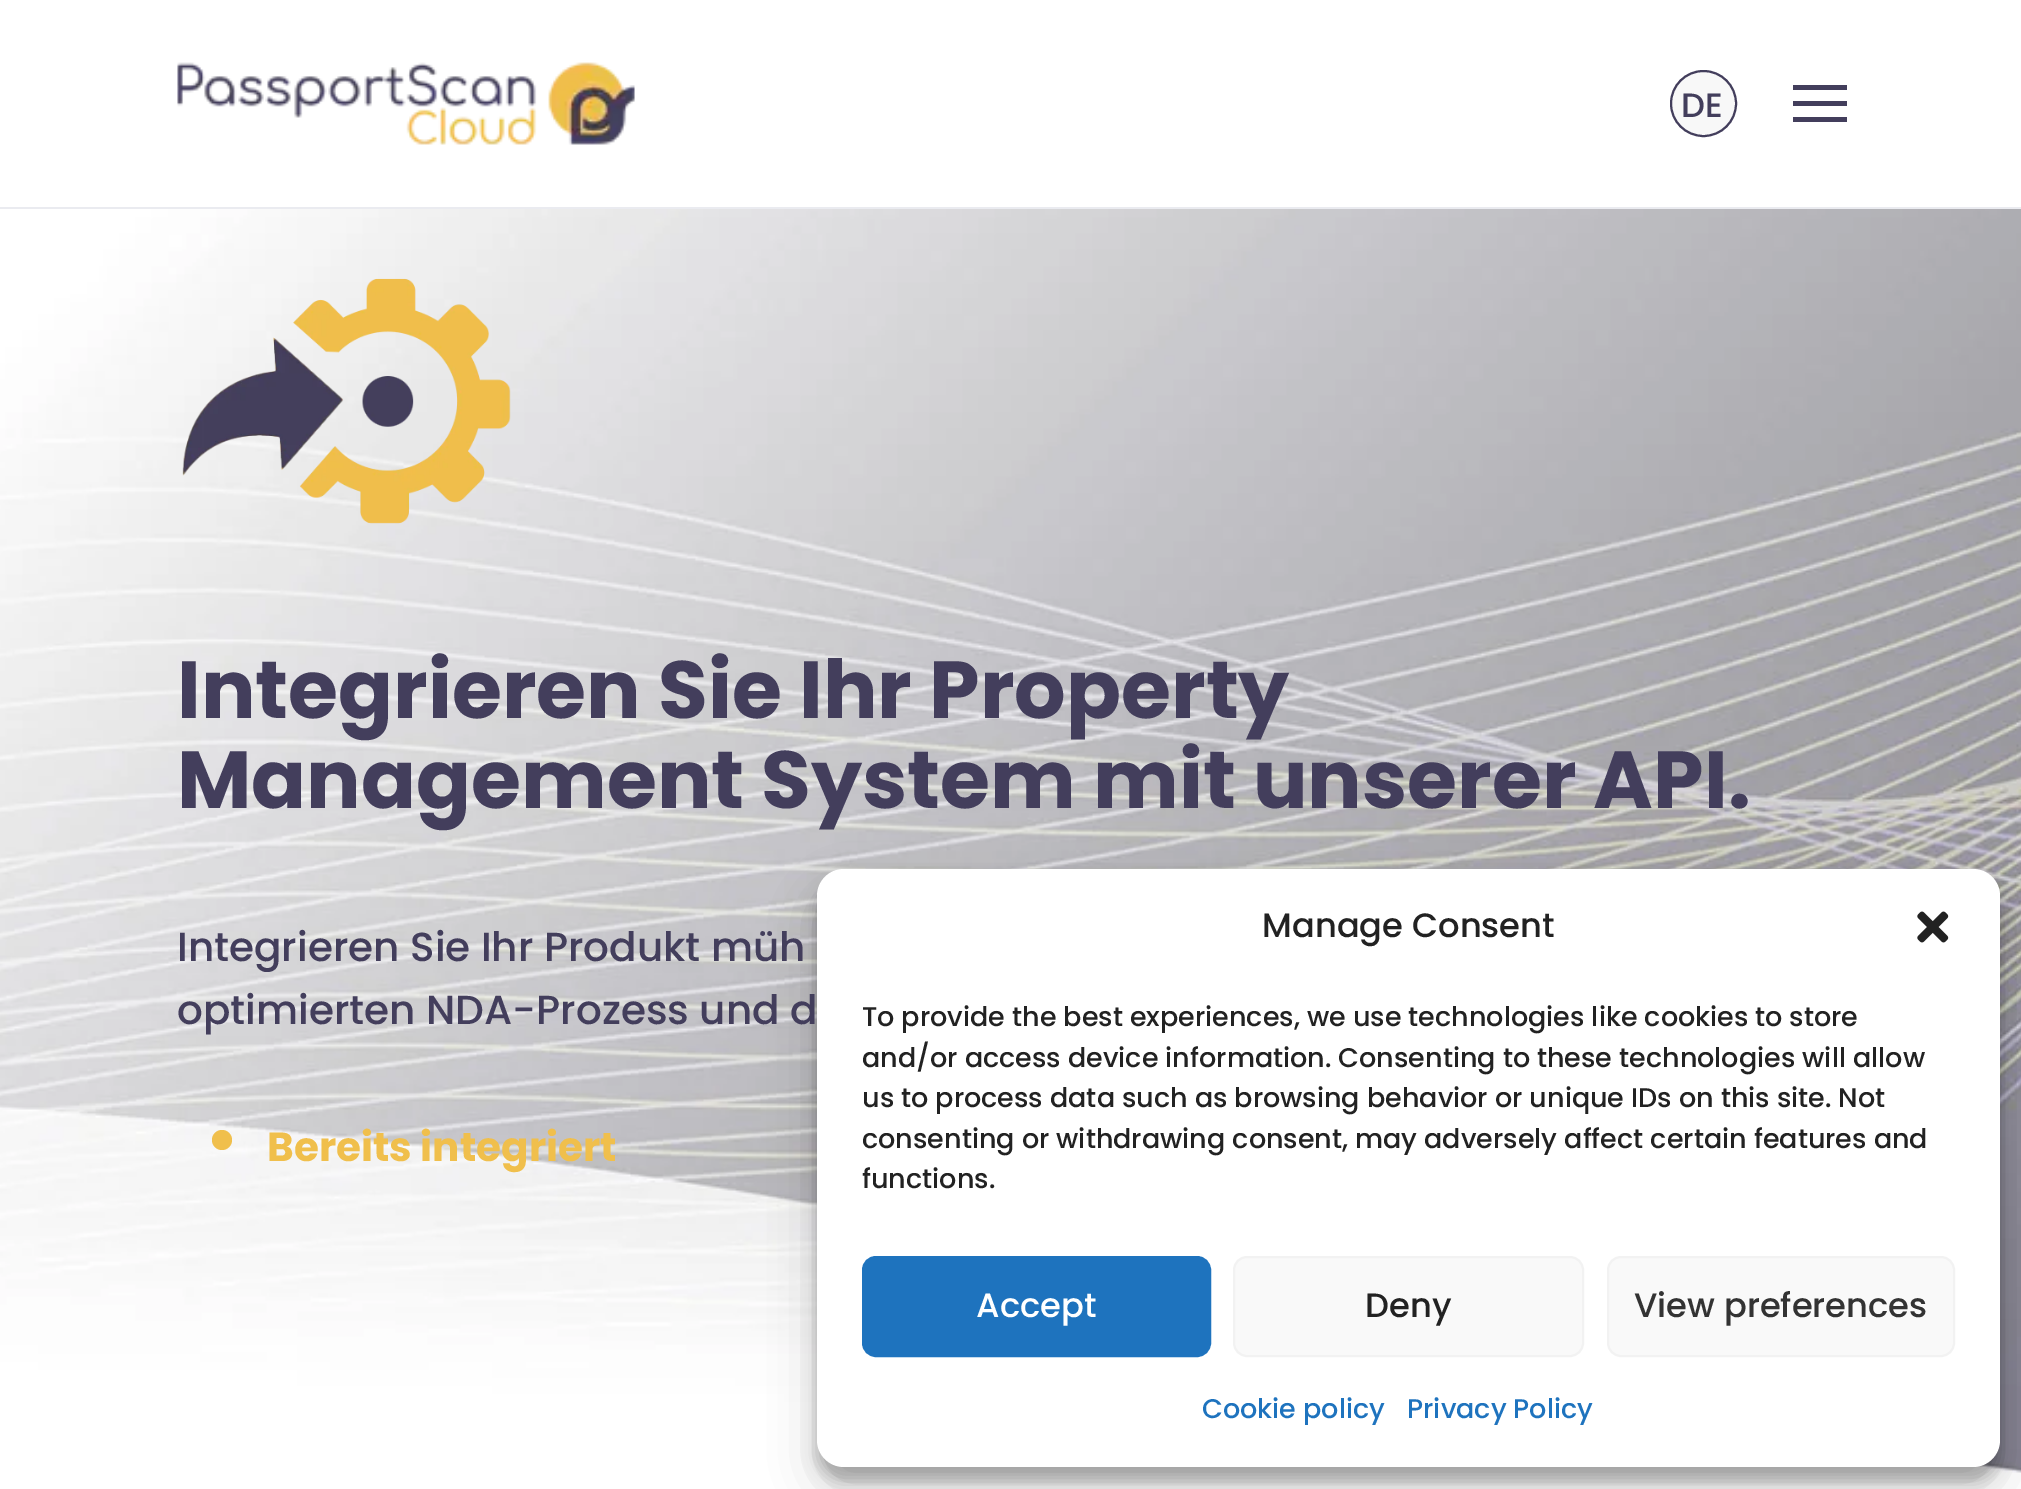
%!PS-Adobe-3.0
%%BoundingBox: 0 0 2021 1489
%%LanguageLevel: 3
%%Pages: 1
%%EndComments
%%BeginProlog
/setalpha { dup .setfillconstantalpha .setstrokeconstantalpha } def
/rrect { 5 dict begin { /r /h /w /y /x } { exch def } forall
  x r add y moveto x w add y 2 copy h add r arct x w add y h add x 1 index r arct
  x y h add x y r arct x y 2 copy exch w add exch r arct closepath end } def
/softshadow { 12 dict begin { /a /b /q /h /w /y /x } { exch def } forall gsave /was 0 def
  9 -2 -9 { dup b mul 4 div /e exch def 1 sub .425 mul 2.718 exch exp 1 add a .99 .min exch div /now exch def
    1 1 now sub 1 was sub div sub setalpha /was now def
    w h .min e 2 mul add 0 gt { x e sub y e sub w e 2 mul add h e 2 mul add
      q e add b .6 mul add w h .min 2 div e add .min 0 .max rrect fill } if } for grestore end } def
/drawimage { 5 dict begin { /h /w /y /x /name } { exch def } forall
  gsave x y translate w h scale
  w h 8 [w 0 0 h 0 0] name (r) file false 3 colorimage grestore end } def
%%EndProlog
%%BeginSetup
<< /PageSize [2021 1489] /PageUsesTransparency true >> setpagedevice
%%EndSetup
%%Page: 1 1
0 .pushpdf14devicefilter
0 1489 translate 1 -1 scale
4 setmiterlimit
1 setgray
0 0 2021 1489 rectfill
0.918 0.922 0.941 setrgbcolor
0 207 2021 2 rectfill
(images/1.raw) 177 62 458 83 drawimage
0.973 setgray
newpath 1703.5 103.5 32.5 0 360 arc closepath gsave fill grestore
0.263 0.243 0.361 setrgbcolor
2 setlinewidth
stroke
newpath 1793 85 moveto 1847 85 lineto 1847 90 lineto 1793 90 lineto closepath 1793 101 moveto 1847 101 lineto 1847 106 lineto 1793 106 lineto closepath 1793 117 moveto 1847 117 lineto 1847 122 lineto 1793 122 lineto closepath eofill
(images/2.raw) 0 209 2021 1264 drawimage
(images/3.raw) 182 278 329 246 drawimage
0.941 0.749 0.298 setrgbcolor
newpath 222 1140 10 0 360 arc closepath fill
0 setgray
817 882 1183 599 27 7 0.23 softshadow
817 891 1183 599 27 22.5 0.19 softshadow
1 setgray
817 869 1183 598 27 rrect fill
(images/4.raw) 1917 911 32 32 drawimage
0.118 0.451 0.745 setrgbcolor
863 1257 347 99 13 rrect gsave fill grestore
stroke
0.976 setgray
1234 1257 349 99 13 rrect gsave fill grestore
0.949 setgray
stroke
0.976 setgray
1608 1257 346 99 13 rrect gsave fill grestore
0.949 setgray
stroke
/Poppins-Medium [33.75 0 0 -33.75 0 0] selectfont
0.263 0.243 0.361 setrgbcolor
1681 117 moveto (DE) show
/Poppins-Bold [81 0 0 -81 0 0] selectfont
177 718 moveto (Integrieren Sie Ihr Property) show
177 808 moveto (Management System mit unserer API.) show
/Poppins-Medium [40.5 0 0 -40.5 0 0] selectfont
177 961 moveto (Integrieren Sie Ihr Produkt müh) show
177 1024 moveto (optimierten NDA-Prozess und d) show
/Poppins-Bold [40.5 0 0 -40.5 0 0] selectfont
0.941 0.749 0.298 setrgbcolor
267 1161 moveto (Bereits integriert) show
/Poppins-Medium [33.75 0 0 -33.75 0 0] selectfont
0.133 setgray
1262 937 moveto (Manage Consent) show
/Poppins-Medium [27 0 0 -27 0 0] selectfont
862 1026 moveto (To provide the best experiences, we use technologies like cookies to store) show
862 1067 moveto (and/or access device information. Consenting to these technologies will allow) show
862 1107 moveto (us to process data such as browsing behavior or unique IDs on this site. Not) show
862 1148 moveto (consenting or withdrawing consent, may adversely affect certain features and) show
862 1188 moveto (functions.) show
/Poppins-Medium [33.75 0 0 -33.75 0 0] selectfont
1 setgray
976 1317 moveto (Accept) show
0.133 setgray
1365 1317 moveto (Deny) show
0.2 setgray
1634 1317 moveto (View preferences) show
/Poppins-Medium [27 0 0 -27 0 0] selectfont
0.118 0.451 0.745 setrgbcolor
1202 1418 moveto (Cookie policy) show
1407 1418 moveto (Privacy Policy) show
.poppdf14devicefilter showpage
%%EOF
